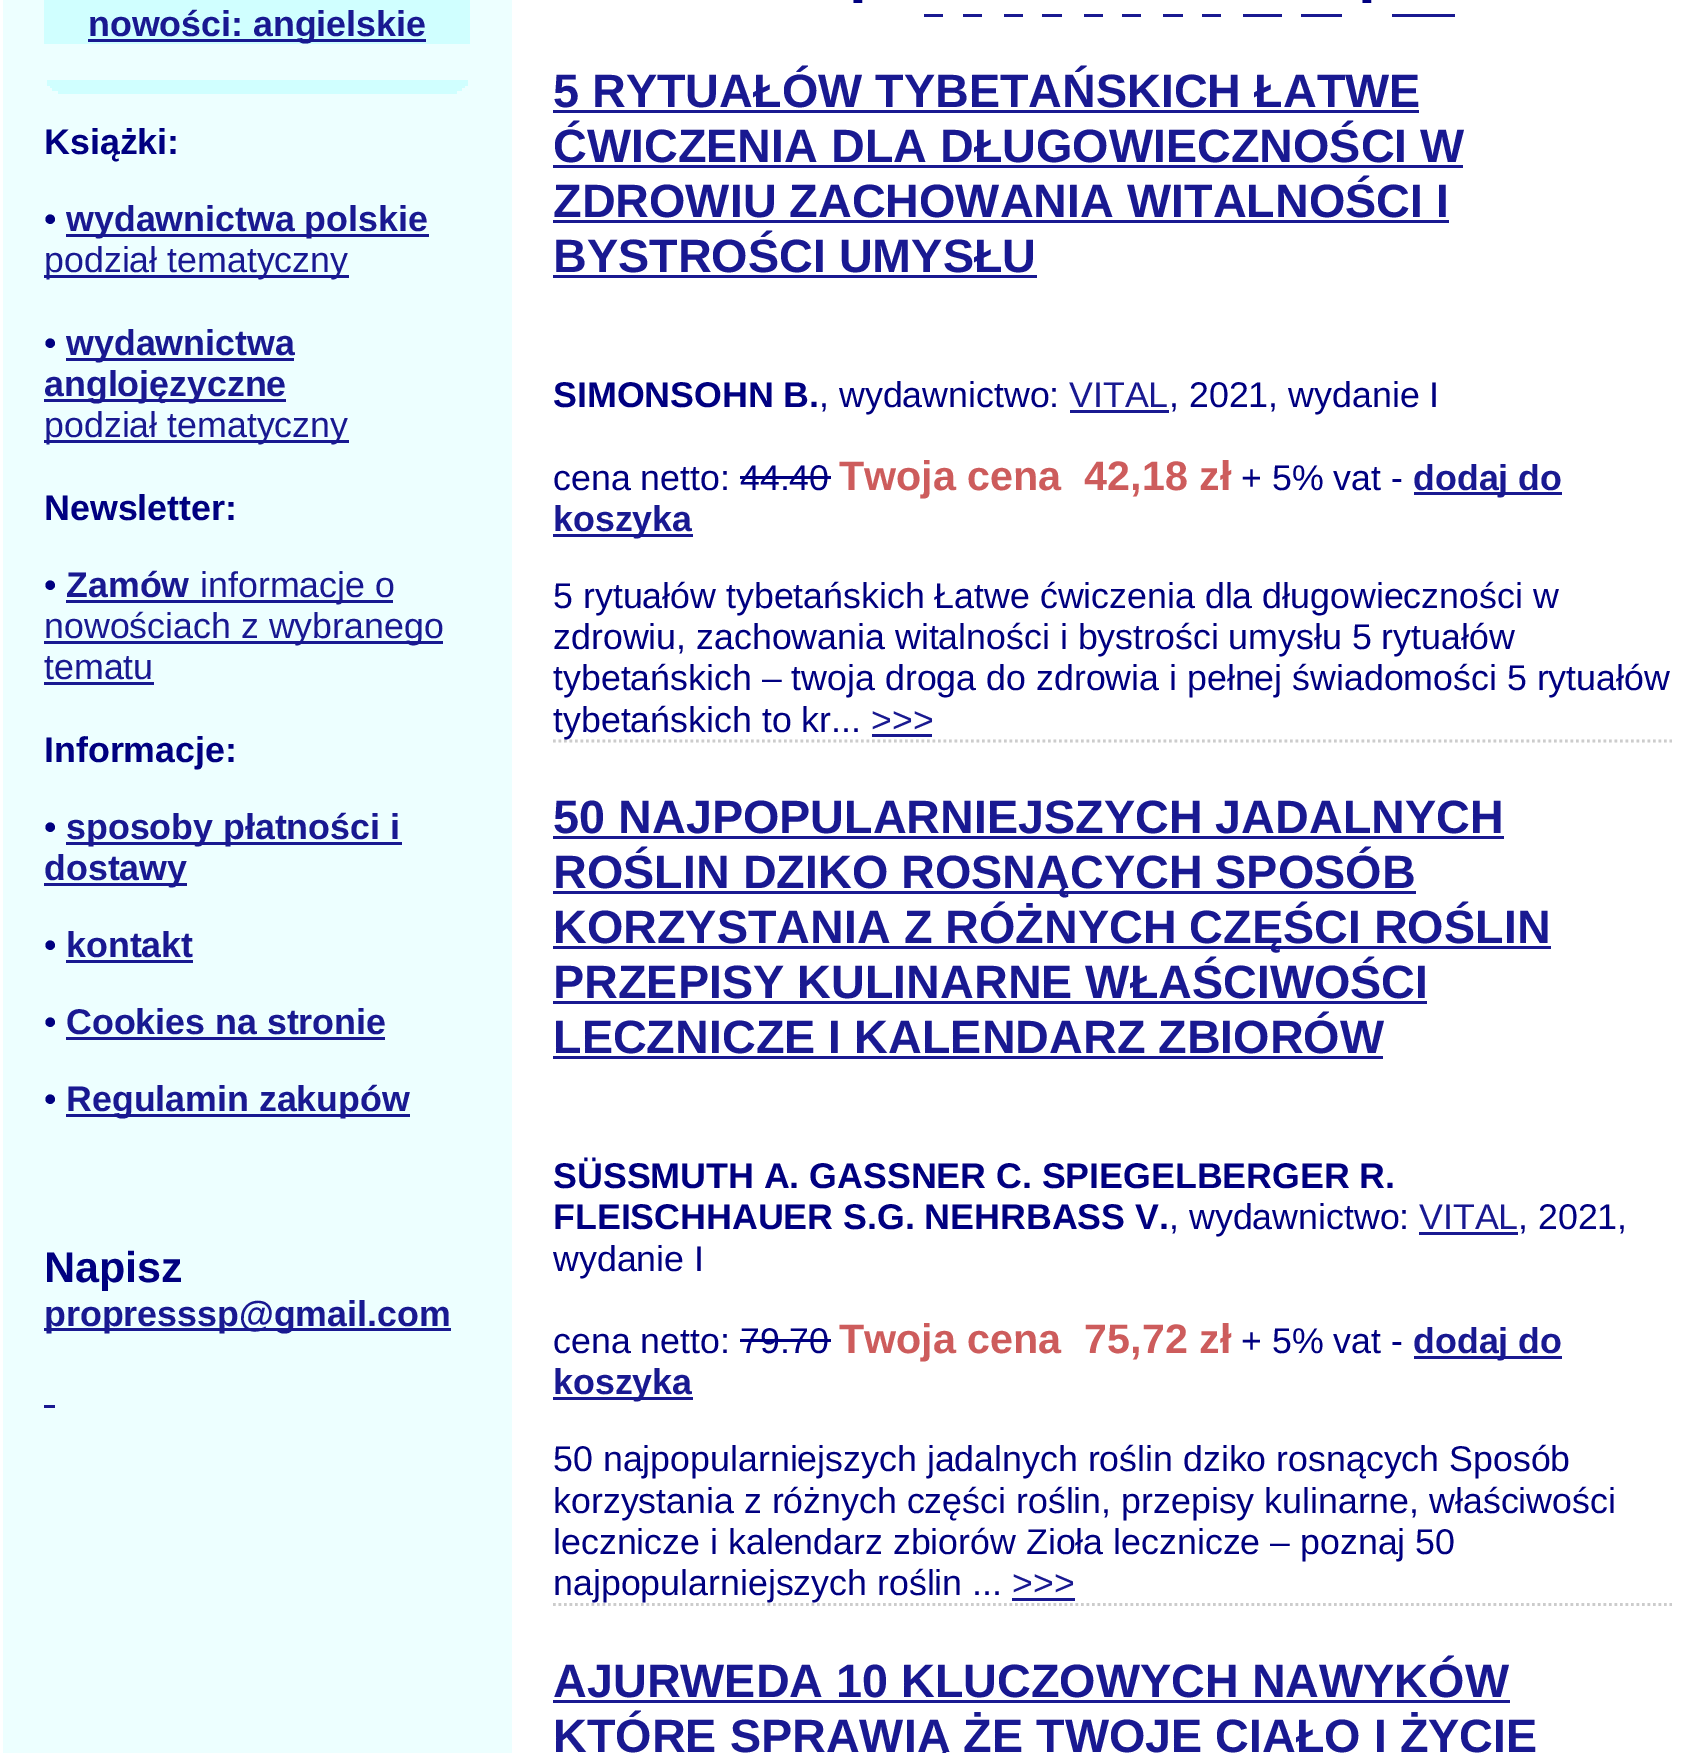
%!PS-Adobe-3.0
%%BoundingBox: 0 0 1686 1753
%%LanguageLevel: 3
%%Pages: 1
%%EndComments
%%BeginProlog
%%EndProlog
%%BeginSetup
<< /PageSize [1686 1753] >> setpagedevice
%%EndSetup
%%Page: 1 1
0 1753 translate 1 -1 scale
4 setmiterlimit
1 setgray
0 0 1686 1753 rectfill
0.929 1 1 setrgbcolor
3 0 509 1753 rectfill
0.816 1 1 setrgbcolor
44 0 426 44 rectfill
0.098 0.098 0.569 setrgbcolor
88 39 338 3 rectfill
0.816 1 1 setrgbcolor
47 80 421 6 rectfill
50 86 415 2 rectfill
52 88 410 3 rectfill
58 91 399 3 rectfill
0.098 0.098 0.569 setrgbcolor
66 234 363 3 rectfill
44 275 305 3 rectfill
66 358 228 3 rectfill
44 399 242 3 rectfill
44 440 305 3 rectfill
66 600 327 3 rectfill
44 641 399 3 rectfill
44 682 110 3 rectfill
66 842 336 3 rectfill
44 883 143 3 rectfill
66 960 127 3 rectfill
66 1037 319 3 rectfill
66 1114 344 3 rectfill
44 1328 407 3 rectfill
44 1405 11 3 rectfill
924 14 19 3 rectfill
963 14 19 3 rectfill
1004 14 19 3 rectfill
1042 14 20 3 rectfill
1084 14 19 3 rectfill
1122 14 19 3 rectfill
1163 14 20 3 rectfill
1202 14 19 3 rectfill
1243 14 39 3 rectfill
1301 14 41 3 rectfill
1392 14 63 3 rectfill
553 110 866 3 rectfill
553 165 910 3 rectfill
553 220 896 3 rectfill
553 275 484 3 rectfill
1070 410 99 3 rectfill
1414 492 148 3 rectfill
0 0 0.502 setrgbcolor
740 476 91 3 rectfill
0.098 0.098 0.569 setrgbcolor
553 534 140 3 rectfill
872 734 60 3 rectfill
0.8 setgray
2.8 setlinewidth
[2.75 2.75] 0 setdash
newpath 553 741 moveto 1672 741 lineto stroke
0.098 0.098 0.569 setrgbcolor
553 836 951 3 rectfill
553 891 863 3 rectfill
553 946 998 3 rectfill
553 1001 874 3 rectfill
553 1056 830 3 rectfill
1419 1232 99 3 rectfill
1414 1356 148 3 rectfill
0 0 0.502 setrgbcolor
740 1339 91 3 rectfill
0.098 0.098 0.569 setrgbcolor
553 1397 140 3 rectfill
1012 1598 63 3 rectfill
0.8 setgray
newpath 553 1604.5 moveto 1672 1604.5 lineto stroke
0.098 0.098 0.569 setrgbcolor
553 1700 957 3 rectfill
/LiberationSans-Bold [35.75 0 0 -35.75 0 0] selectfont
88 36 moveto (nowości: angielskie) show
0 0 0.502 setrgbcolor
44 154 moveto (Książki:) show
/LiberationSans-Regular [35.75 0 0 -35.75 0 0] selectfont
44 231 moveto (•) show
/LiberationSans-Bold [35.75 0 0 -35.75 0 0] selectfont
0.098 0.098 0.569 setrgbcolor
66 231 moveto (wydawnictwa polskie) show
/LiberationSans-Regular [35.75 0 0 -35.75 0 0] selectfont
44 272 moveto (podział tematyczny) show
0 0 0.502 setrgbcolor
44 355 moveto (•) show
/LiberationSans-Bold [35.75 0 0 -35.75 0 0] selectfont
0.098 0.098 0.569 setrgbcolor
66 355 moveto (wydawnictwa) show
44 396 moveto (anglojęzyczne) show
/LiberationSans-Regular [35.75 0 0 -35.75 0 0] selectfont
44 437 moveto (podział tematyczny) show
/LiberationSans-Bold [35.75 0 0 -35.75 0 0] selectfont
0 0 0.502 setrgbcolor
44 520 moveto (Newsletter:) show
/LiberationSans-Regular [35.75 0 0 -35.75 0 0] selectfont
44 597 moveto (•) show
/LiberationSans-Bold [35.75 0 0 -35.75 0 0] selectfont
0.098 0.098 0.569 setrgbcolor
66 597 moveto (Zamów) show
/LiberationSans-Regular [35.75 0 0 -35.75 0 0] selectfont
200 597 moveto (informacje o) show
44 638 moveto (nowościach z wybranego) show
44 679 moveto (tematu) show
/LiberationSans-Bold [35.75 0 0 -35.75 0 0] selectfont
0 0 0.502 setrgbcolor
44 762 moveto (Informacje:) show
/LiberationSans-Regular [35.75 0 0 -35.75 0 0] selectfont
44 839 moveto (•) show
/LiberationSans-Bold [35.75 0 0 -35.75 0 0] selectfont
0.098 0.098 0.569 setrgbcolor
66 839 moveto (sposoby płatności i) show
44 880 moveto (dostawy) show
/LiberationSans-Regular [35.75 0 0 -35.75 0 0] selectfont
0 0 0.502 setrgbcolor
44 957 moveto (•) show
/LiberationSans-Bold [35.75 0 0 -35.75 0 0] selectfont
0.098 0.098 0.569 setrgbcolor
66 957 moveto (kontakt) show
/LiberationSans-Regular [35.75 0 0 -35.75 0 0] selectfont
0 0 0.502 setrgbcolor
44 1034 moveto (•) show
/LiberationSans-Bold [35.75 0 0 -35.75 0 0] selectfont
0.098 0.098 0.569 setrgbcolor
66 1034 moveto (Cookies na stronie) show
/LiberationSans-Regular [35.75 0 0 -35.75 0 0] selectfont
0 0 0.502 setrgbcolor
44 1111 moveto (•) show
/LiberationSans-Bold [35.75 0 0 -35.75 0 0] selectfont
0.098 0.098 0.569 setrgbcolor
66 1111 moveto (Regulamin zakupów) show
/LiberationSans-Bold [43 0 0 -43 0 0] selectfont
0 0 0.502 setrgbcolor
44 1282 moveto (Napisz) show
/LiberationSans-Bold [35.75 0 0 -35.75 0 0] selectfont
0.098 0.098 0.569 setrgbcolor
44 1326 moveto (propresssp@gmail.com) show
/LiberationSans-Regular [35.75 0 0 -35.75 0 0] selectfont
0 0 0.502 setrgbcolor
852 11 moveto (-) show
1361 11 moveto (-) show
/LiberationSans-Bold [46.75 0 0 -46.75 0 0] selectfont
0.098 0.098 0.569 setrgbcolor
553 107 moveto (5 RYTUAŁÓW TYBETAŃSKICH ŁATWE) show
553 162 moveto (ĆWICZENIA DLA DŁUGOWIECZNOŚCI W) show
553 217 moveto (ZDROWIU ZACHOWANIA WITALNOŚCI I) show
553 272 moveto (BYSTROŚCI UMYSŁU) show
/LiberationSans-Bold [35.75 0 0 -35.75 0 0] selectfont
0 0 0.502 setrgbcolor
553 407 moveto (SIMONSOHN B.) show
/LiberationSans-Regular [35.75 0 0 -35.75 0 0] selectfont
819 407 moveto (, wydawnictwo:) show
0.098 0.098 0.569 setrgbcolor
1069 407 moveto (VITAL) show
0 0 0.502 setrgbcolor
1169 407 moveto (, 2021, wydanie I) show
553 490 moveto (cena netto: 44.40) show
/LiberationSans-Bold [41.25 0 0 -41.25 0 0] selectfont
0.804 0.361 0.361 setrgbcolor
839 490 moveto (Twoja cena  42,18 zł) show
/LiberationSans-Regular [35.75 0 0 -35.75 0 0] selectfont
0 0 0.502 setrgbcolor
1241 490 moveto (+ 5% vat -) show
/LiberationSans-Bold [35.75 0 0 -35.75 0 0] selectfont
0.098 0.098 0.569 setrgbcolor
1413 490 moveto (dodaj do) show
553 531 moveto (koszyka) show
/LiberationSans-Regular [35.75 0 0 -35.75 0 0] selectfont
0 0 0.502 setrgbcolor
553 608 moveto (5 rytuałów tybetańskich Łatwe ćwiczenia dla długowieczności w) show
553 649 moveto (zdrowiu, zachowania witalności i bystrości umysłu 5 rytuałów) show
553 690 moveto (tybetańskich – twoja droga do zdrowia i pełnej świadomości 5 rytuałów) show
553 732 moveto (tybetańskich to kr...) show
0.098 0.098 0.569 setrgbcolor
871 732 moveto (>>>) show
/LiberationSans-Bold [46.75 0 0 -46.75 0 0] selectfont
553 833 moveto (50 NAJPOPULARNIEJSZYCH JADALNYCH) show
553 888 moveto (ROŚLIN DZIKO ROSNĄCYCH SPOSÓB) show
553 943 moveto (KORZYSTANIA Z RÓŻNYCH CZĘŚCI ROŚLIN) show
553 998 moveto (PRZEPISY KULINARNE WŁAŚCIWOŚCI) show
553 1053 moveto (LECZNICZE I KALENDARZ ZBIORÓW) show
/LiberationSans-Bold [35.75 0 0 -35.75 0 0] selectfont
0 0 0.502 setrgbcolor
553 1188 moveto (SÜSSMUTH A. GASSNER C. SPIEGELBERGER R.) show
553 1229 moveto (FLEISCHHAUER S.G. NEHRBASS V.) show
/LiberationSans-Regular [35.75 0 0 -35.75 0 0] selectfont
1169 1229 moveto (, wydawnictwo:) show
0.098 0.098 0.569 setrgbcolor
1419 1229 moveto (VITAL) show
0 0 0.502 setrgbcolor
1518 1229 moveto (, 2021,) show
553 1271 moveto (wydanie I) show
553 1353 moveto (cena netto: 79.70) show
/LiberationSans-Bold [41.25 0 0 -41.25 0 0] selectfont
0.804 0.361 0.361 setrgbcolor
839 1353 moveto (Twoja cena  75,72 zł) show
/LiberationSans-Regular [35.75 0 0 -35.75 0 0] selectfont
0 0 0.502 setrgbcolor
1241 1353 moveto (+ 5% vat -) show
/LiberationSans-Bold [35.75 0 0 -35.75 0 0] selectfont
0.098 0.098 0.569 setrgbcolor
1413 1353 moveto (dodaj do) show
553 1394 moveto (koszyka) show
/LiberationSans-Regular [35.75 0 0 -35.75 0 0] selectfont
0 0 0.502 setrgbcolor
553 1471 moveto (50 najpopularniejszych jadalnych roślin dziko rosnących Sposób) show
553 1513 moveto (korzystania z różnych części roślin, przepisy kulinarne, właściwości) show
553 1554 moveto (lecznicze i kalendarz zbiorów Zioła lecznicze – poznaj 50) show
553 1595 moveto (najpopularniejszych roślin ...) show
0.098 0.098 0.569 setrgbcolor
1012 1595 moveto (>>>) show
/LiberationSans-Bold [46.75 0 0 -46.75 0 0] selectfont
553 1697 moveto (AJURWEDA 10 KLUCZOWYCH NAWYKÓW) show
553 1752 moveto (KTÓRE SPRAWIĄ ŻE TWOJE CIAŁO I ŻYCIE) show
showpage
%%EOF
